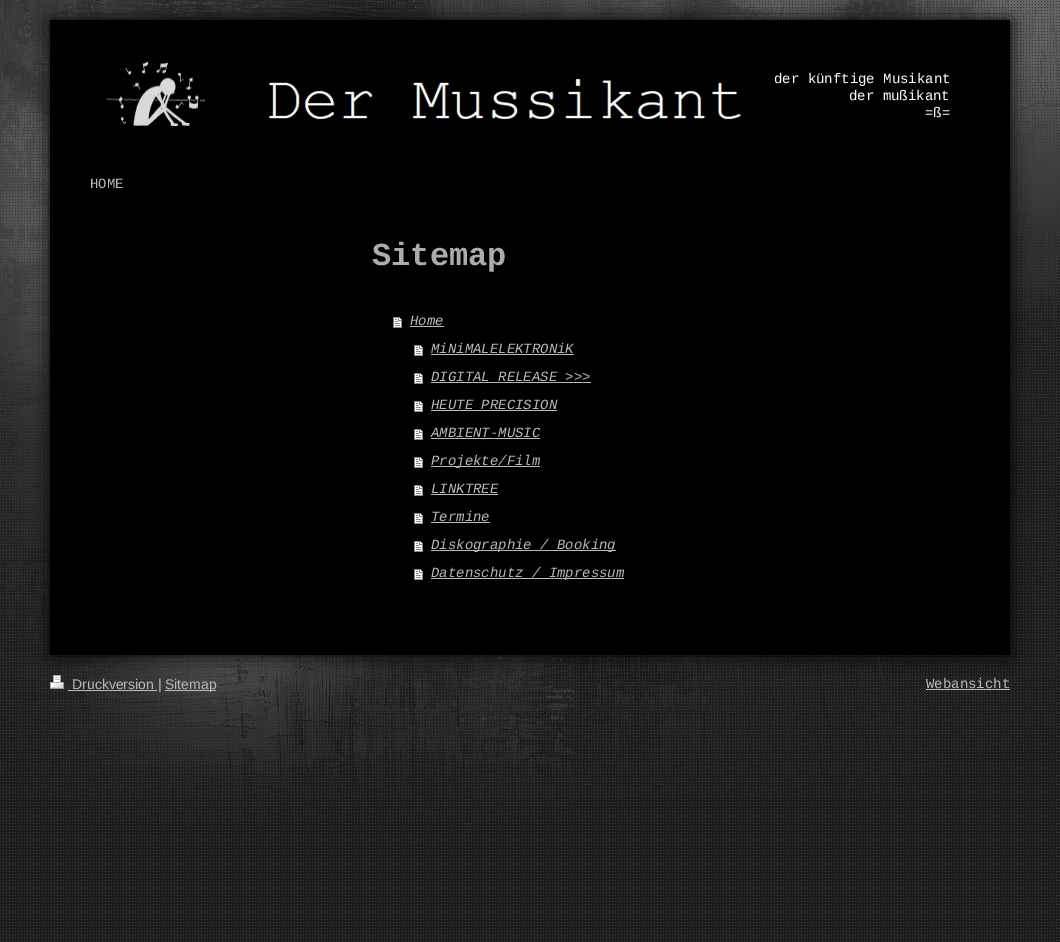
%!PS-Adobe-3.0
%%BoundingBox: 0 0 1060 942
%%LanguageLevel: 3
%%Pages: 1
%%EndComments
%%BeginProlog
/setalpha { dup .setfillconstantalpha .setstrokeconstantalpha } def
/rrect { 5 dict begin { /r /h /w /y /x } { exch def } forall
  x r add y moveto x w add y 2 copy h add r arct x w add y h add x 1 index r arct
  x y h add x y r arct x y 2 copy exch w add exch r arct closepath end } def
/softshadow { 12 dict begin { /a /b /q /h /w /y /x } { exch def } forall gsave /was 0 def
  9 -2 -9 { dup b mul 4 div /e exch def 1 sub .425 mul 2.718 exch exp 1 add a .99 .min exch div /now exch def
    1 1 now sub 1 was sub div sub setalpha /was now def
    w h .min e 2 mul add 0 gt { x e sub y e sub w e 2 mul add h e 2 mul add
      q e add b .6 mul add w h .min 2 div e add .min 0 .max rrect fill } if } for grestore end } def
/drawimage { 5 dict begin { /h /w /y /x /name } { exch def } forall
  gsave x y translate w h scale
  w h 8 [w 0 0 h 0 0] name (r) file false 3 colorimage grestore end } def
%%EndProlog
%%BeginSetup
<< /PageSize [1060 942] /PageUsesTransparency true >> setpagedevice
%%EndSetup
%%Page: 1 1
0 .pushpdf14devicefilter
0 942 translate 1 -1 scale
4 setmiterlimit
1 setgray
0 0 1060 942 rectfill
(images/1.raw) 0 0 1060 942 drawimage
0 setgray
50 20 960 635 0 10 1 softshadow
50 20 960 635 rectfill
(images/2.raw) 70 40 920 112 drawimage
(images/3.raw) 106 58 99 69 drawimage
(images/4.raw) 393 317 9 11 drawimage
0.722 setgray
410 326 34 1 rectfill
(images/4.raw) 414 345 9 11 drawimage
431 354 143 1 rectfill
(images/4.raw) 414 373 9 11 drawimage
431 382 160 1 rectfill
(images/4.raw) 414 401 9 11 drawimage
431 410 126 1 rectfill
(images/4.raw) 414 429 9 11 drawimage
431 438 109 1 rectfill
(images/4.raw) 414 457 9 11 drawimage
431 466 109 1 rectfill
(images/4.raw) 414 485 9 11 drawimage
431 494 67 1 rectfill
(images/4.raw) 414 513 9 11 drawimage
431 522 59 1 rectfill
(images/4.raw) 414 541 9 11 drawimage
431 550 185 1 rectfill
(images/4.raw) 414 569 9 11 drawimage
431 578 193 1 rectfill
(images/5.raw) 50 675 14 14 drawimage
68 690 89 1 rectfill
165 690 51 1 rectfill
926 689 84 1 rectfill
/LiberationMono-Regular [14 0 0 -14 0 0] selectfont
1 setgray
774 83 moveto (der künftige Musikant) show
849 100 moveto (der mußikant) show
925 117 moveto (=ß=) show
0.722 setgray
90 188 moveto (HOME) show
/LiberationMono-Bold [32 0 0 -32 0 0] selectfont
0.675 setgray
372 265 moveto (Sitemap) show
/LiberationMono-Italic [14 0 0 -14 0 0] selectfont
0.722 setgray
410 325 moveto (Home) show
431 353 moveto (MiNiMALELEKTRONiK) show
431 381 moveto (DIGITAL RELEASE >>>) show
431 409 moveto (HEUTE PRECISION) show
431 437 moveto (AMBIENT-MUSIC) show
431 465 moveto (Projekte/Film) show
431 493 moveto (LINKTREE) show
431 521 moveto (Termine) show
431 549 moveto (Diskographie / Booking) show
431 577 moveto (Datenschutz / Impressum) show
/LiberationSans-Regular [14 0 0 -14 0 0] selectfont
72 689 moveto (Druckversion |) show
165 689 moveto (Sitemap) show
/LiberationMono-Regular [14 0 0 -14 0 0] selectfont
926 688 moveto (Webansicht) show
.poppdf14devicefilter showpage
%%EOF
